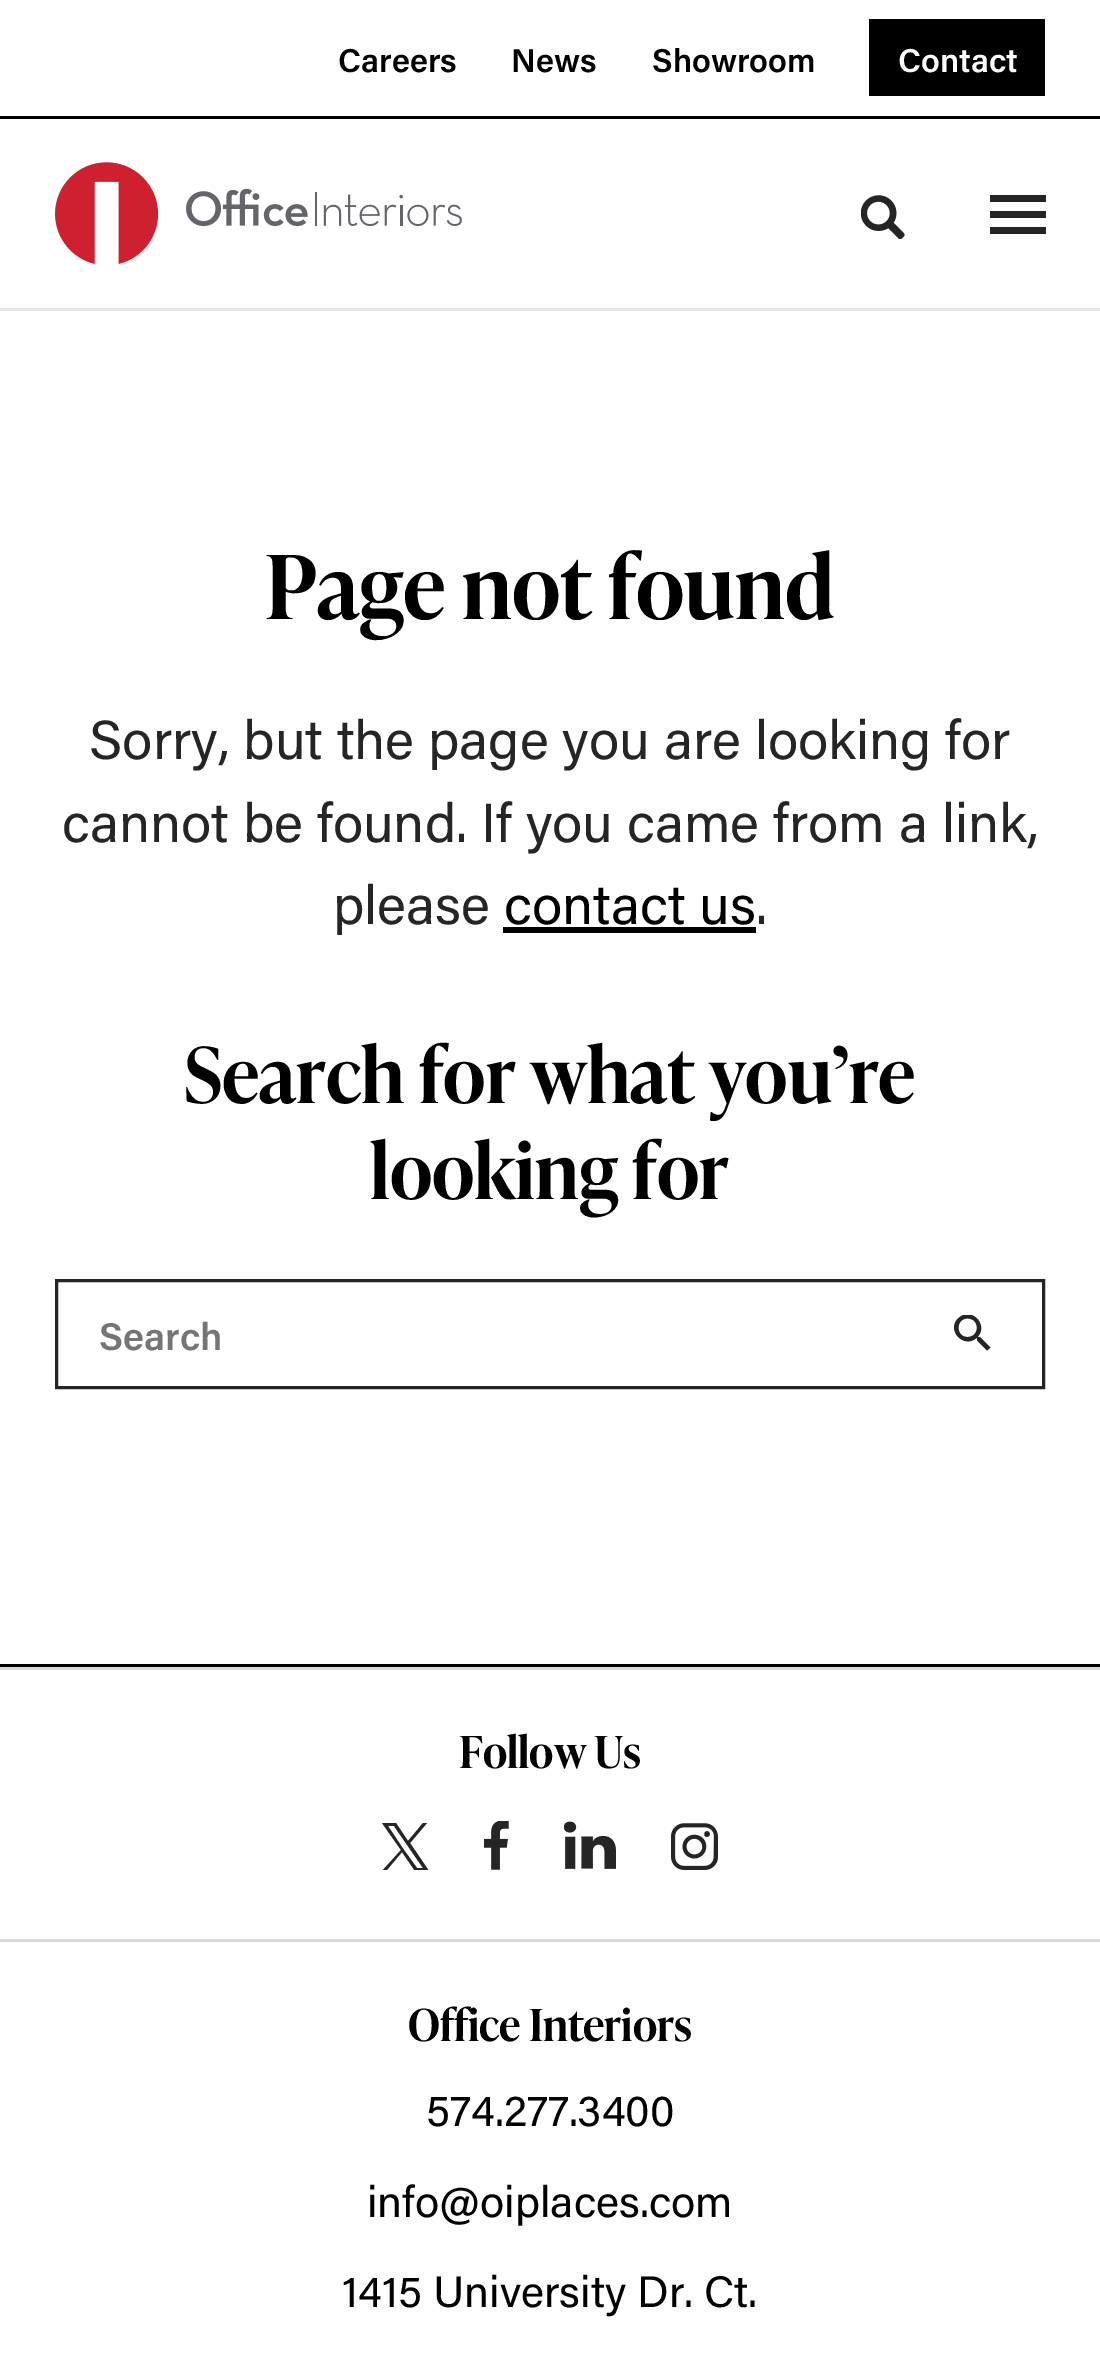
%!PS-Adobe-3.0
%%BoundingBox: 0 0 1100 2362
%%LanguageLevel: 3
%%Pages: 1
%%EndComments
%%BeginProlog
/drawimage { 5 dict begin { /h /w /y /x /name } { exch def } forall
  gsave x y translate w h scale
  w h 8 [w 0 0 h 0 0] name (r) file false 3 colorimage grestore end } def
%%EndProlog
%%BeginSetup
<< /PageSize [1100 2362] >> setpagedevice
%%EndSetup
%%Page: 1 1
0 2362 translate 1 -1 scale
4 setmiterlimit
1 setgray
0 0 1100 2362 rectfill
0 setgray
0 116 1100 3 rectfill
869 19 176 77 rectfill
0.902 setgray
0 308 1100 3 rectfill
(images/1.raw) 55 162 407 102 drawimage
(images/2.raw) 861 195 44 44 drawimage
gsave
990 195 58 39 rectclip
0.145 setgray
newpath 989 234 moveto 1046 234 lineto 1046 227 lineto 989 227 lineto closepath 989 218 moveto 1046 218 lineto 1046 211 lineto 989 211 lineto closepath 989 195 moveto 989 202 lineto 1046 202 lineto 1046 195 lineto closepath eofill
grestore
0 setgray
503 927 253 6 rectfill
0.145 setgray
3 setlinewidth
56.5 1280.5 987 107 rectstroke
gsave
954 1315 39 38 rectclip
newpath 980 1337 moveto 978.5 1337 lineto 978 1336.5 lineto 988.5 1324 970.5 1306 958 1318.5 curveto 946 1330.5 964 1349 976.5 1338 curveto 977 1338.5 lineto 977 1340.5 lineto 987 1350.5 lineto 990.5 1347.5 lineto closepath 967.5 1337 moveto 955.5 1337 955.5 1318.5 967.5 1318.5 curveto 980 1318.5 980 1337 967.5 1337 curveto closepath eofill
grestore
0 setgray
0 1664 1100 3 rectfill
0.851 setgray
0 1667 1100 3 rectfill
gsave
382 1823 47 47 rectclip
0.145 setgray
newpath 410 1843 moveto 427 1823 lineto 423 1823 lineto 408 1841 lineto 396 1823 lineto 382 1823 lineto 401 1850 lineto 382 1871 lineto 386 1871 lineto 402 1852 lineto 415 1871 lineto 429 1871 lineto closepath 404 1850 moveto 388 1826 lineto 394 1826 lineto 423 1868 lineto 417 1868 lineto closepath fill
grestore
(images/3.raw) 484 1821 25 49 drawimage
(images/4.raw) 564 1821 52 48 drawimage
(images/5.raw) 671 1823 47 47 drawimage
0 1939 1100 3 rectfill
/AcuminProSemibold-SemiBold [33 0 0 -33 0 0] selectfont
0 setgray
338 72 moveto (Careers) show
511 72 moveto (News) show
652 72 moveto (Showroom) show
1 setgray
898 72 moveto (Contact) show
/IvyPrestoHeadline-SemiBold [88 0 0 -88 0 0] selectfont
0 setgray
265 619 moveto -0.1 0 (Page not found) ashow
/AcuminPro-Regular [55 0 0 -55 0 0] selectfont
0.145 setgray
89 759 moveto (Sorry, but the page you are looking for) show
62 842 moveto (cannot be found. If you came from a link,) show
333 924 moveto (please) show
0 setgray
504 924 moveto (contact us) show
0.145 setgray
756 924 moveto (.) show
/IvyPrestoHeadline-SemiBold [77 0 0 -77 0 0] selectfont
0 setgray
184 1103 moveto -0.1 0 (Search for what you’re) ashow
370 1199 moveto -0.1 0 (looking for) ashow
/AcuminProSemibold-SemiBold [38.5 0 0 -38.5 0 0] selectfont
0.459 setgray
99 1350 moveto (Search) show
/IvyPrestoHeadline-SemiBold [44 0 0 -44 0 0] selectfont
0 setgray
459 1768 moveto -0.1 0 (Follow Us) ashow
408 2041 moveto -0.1 0 (Office Interiors) ashow
/AcuminPro-Regular [44 0 0 -44 0 0] selectfont
426 2126 moveto (574.277.3400) show
367 2217 moveto (info@oiplaces.com) show
342 2307 moveto (1415 University Dr. Ct.) show
showpage
%%EOF
